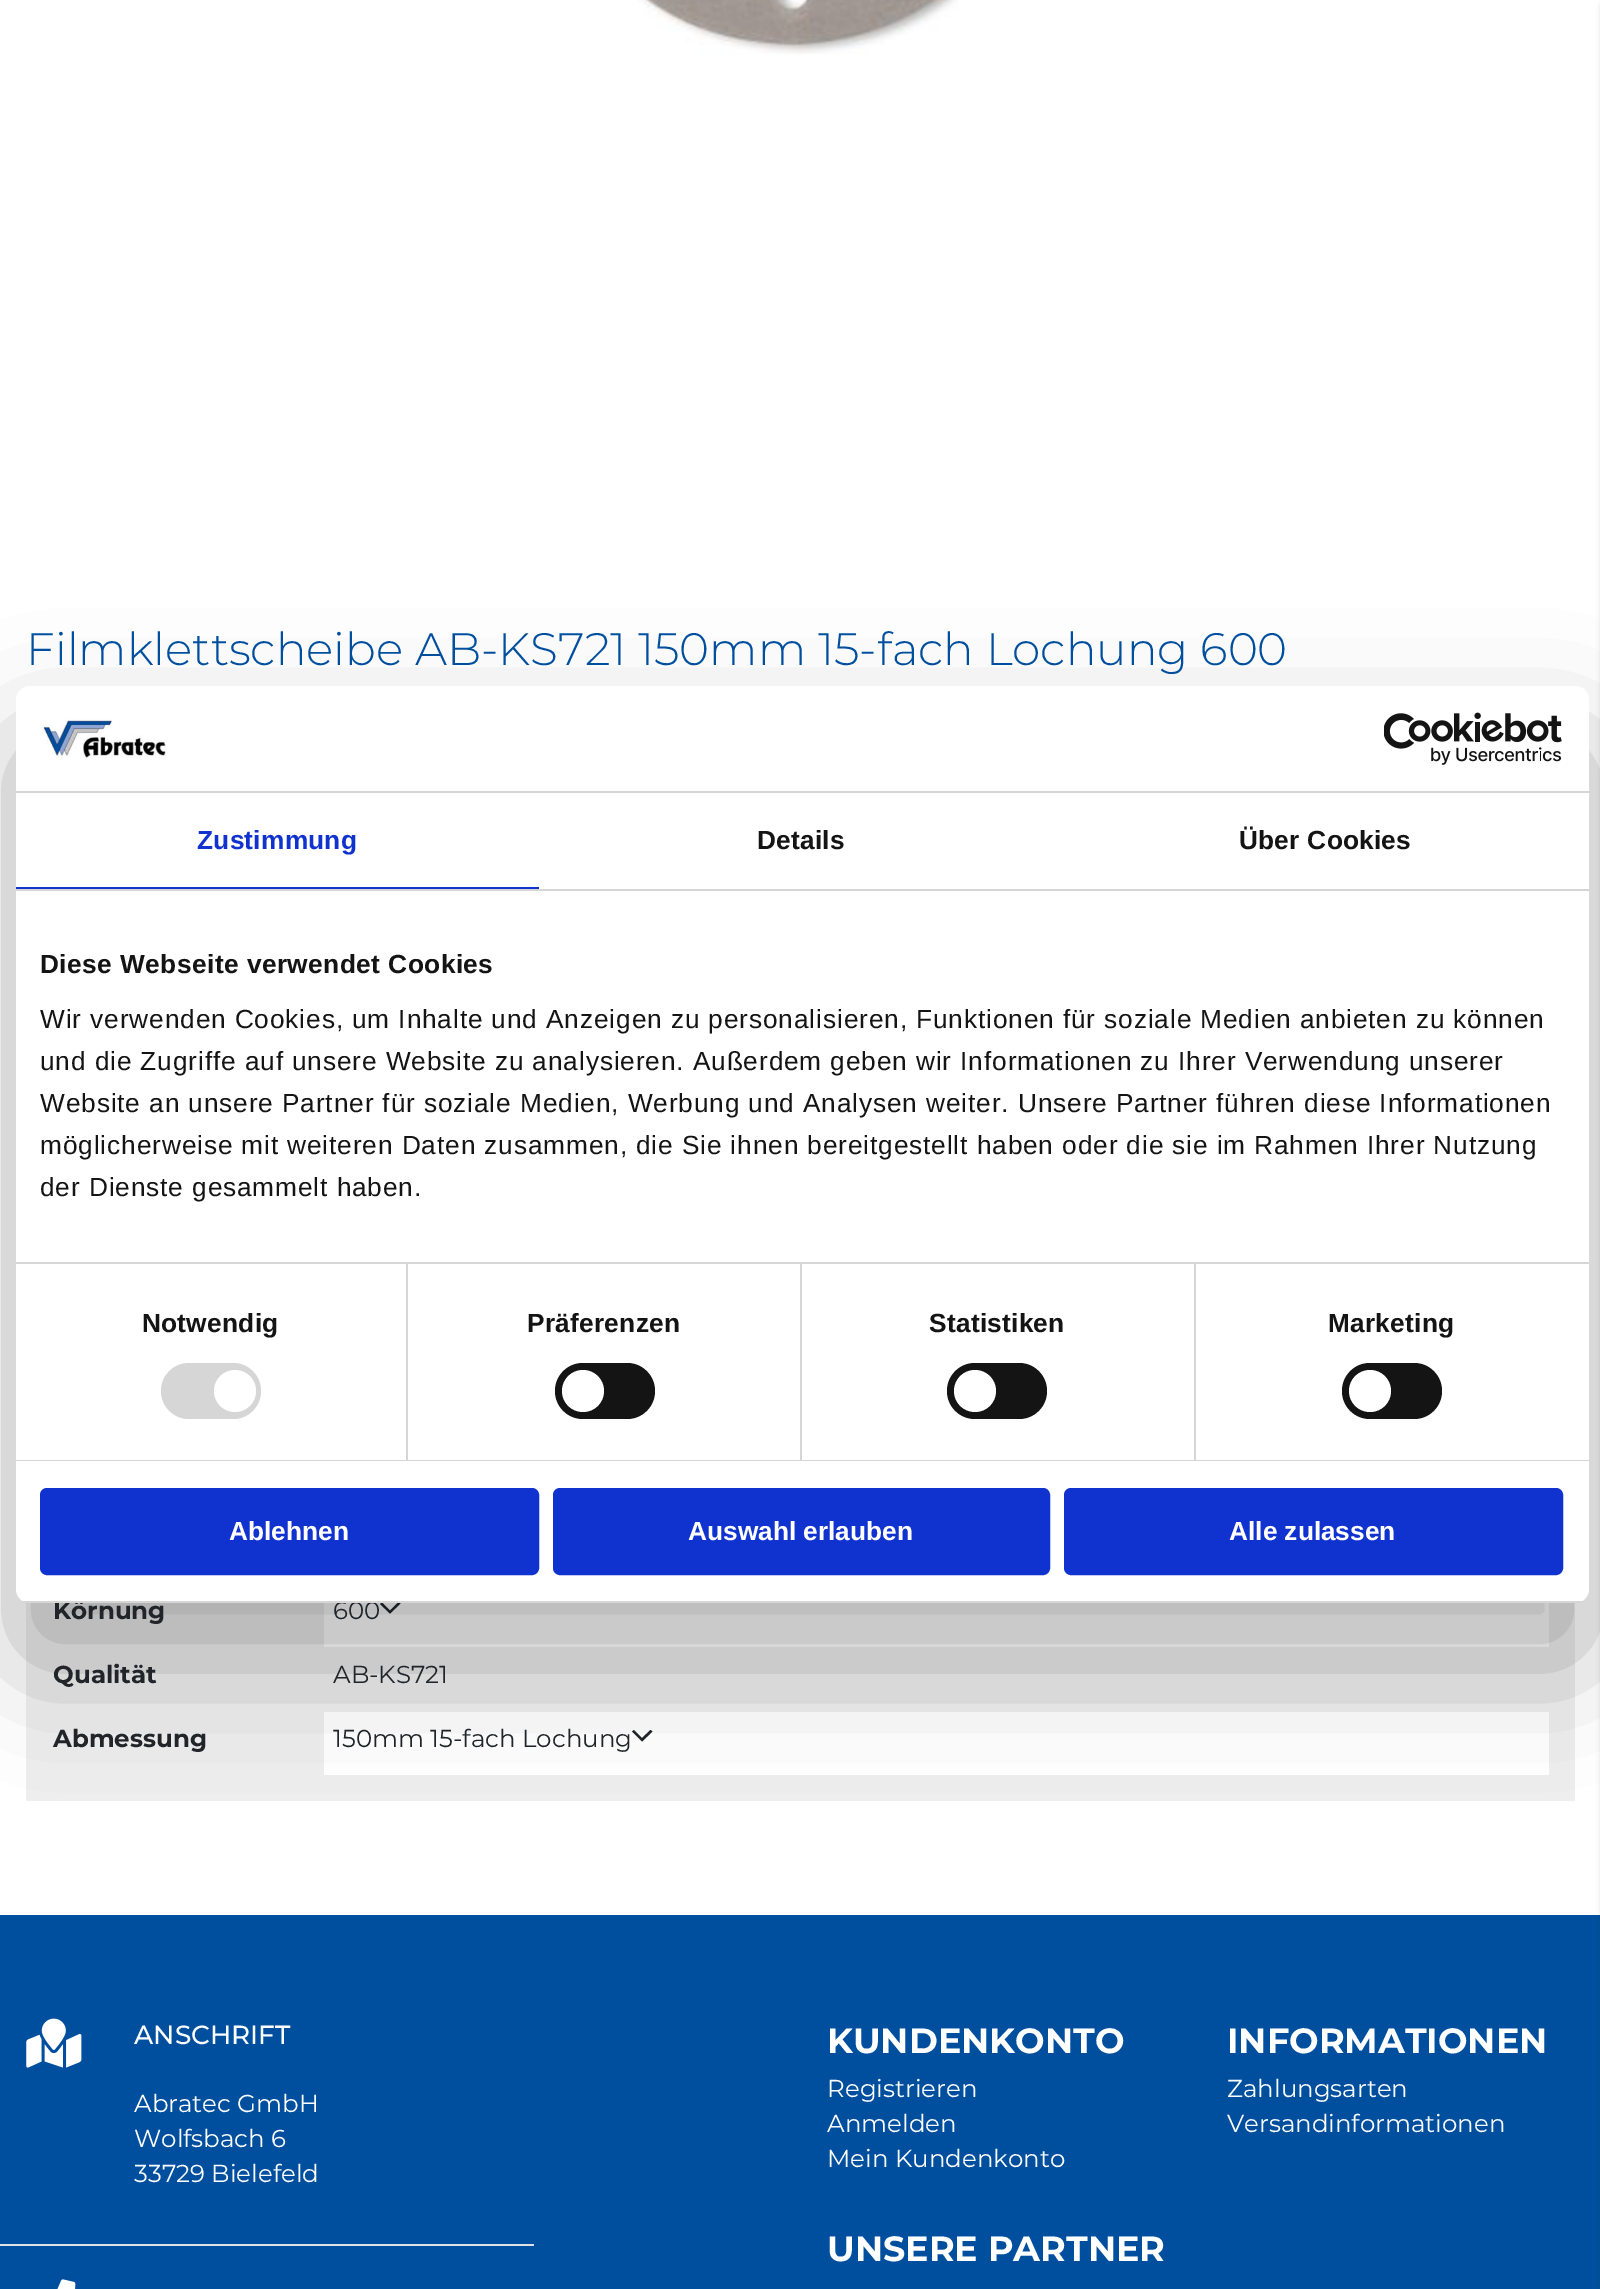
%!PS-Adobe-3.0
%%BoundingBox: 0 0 1600 2289
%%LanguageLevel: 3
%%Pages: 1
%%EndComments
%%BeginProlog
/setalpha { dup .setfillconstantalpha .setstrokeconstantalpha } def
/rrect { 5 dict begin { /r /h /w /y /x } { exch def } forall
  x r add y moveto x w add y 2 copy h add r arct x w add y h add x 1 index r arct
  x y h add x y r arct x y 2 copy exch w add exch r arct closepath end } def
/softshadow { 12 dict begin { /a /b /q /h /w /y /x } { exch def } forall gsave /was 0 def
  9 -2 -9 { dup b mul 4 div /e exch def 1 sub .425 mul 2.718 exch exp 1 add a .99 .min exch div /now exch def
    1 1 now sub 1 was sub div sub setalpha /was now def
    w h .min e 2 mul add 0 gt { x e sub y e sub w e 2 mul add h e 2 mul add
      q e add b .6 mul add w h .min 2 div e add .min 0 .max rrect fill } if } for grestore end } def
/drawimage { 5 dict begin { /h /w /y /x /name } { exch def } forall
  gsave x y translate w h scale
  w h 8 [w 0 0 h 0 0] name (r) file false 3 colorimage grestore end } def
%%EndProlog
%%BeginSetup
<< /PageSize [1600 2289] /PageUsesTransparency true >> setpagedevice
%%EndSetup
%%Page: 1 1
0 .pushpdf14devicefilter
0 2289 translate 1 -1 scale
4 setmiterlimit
1 setgray
0 0 1600 2289 rectfill
(images/1.raw) 637 0 321 55 drawimage
0.933 setgray
26 1602 1549 199 rectfill
1 setgray
324 1603 1225 44 rectfill
0.129 0.145 0.161 setrgbcolor
newpath 390 1610.5 moveto 382 1602.5 lineto 380 1604 lineto 390 1613.5 lineto 400.5 1603.5 lineto 398.5 1602 lineto closepath fill
1 setgray
324 1712 1225 63 rectfill
0.129 0.145 0.161 setrgbcolor
newpath 642 1738 moveto 634 1730 lineto 632 1731.5 lineto 642 1741.5 lineto 652.5 1731.5 lineto 650.5 1730 lineto closepath fill
0 0.31 0.62 setrgbcolor
0 1915 1600 374 rectfill
0 setgray
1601 5 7 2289 0 2.5 0.15 softshadow
0.871 0.886 0.902 setrgbcolor
0 2244 534 2 rectfill
(images/2.raw) 26 2018 56 50 drawimage
(images/3.raw) 57 2279 19 10 drawimage
0 setgray
16 742 1573 917 14 59.5 0.3 softshadow
/Montserrat-Light [45.5 0 0 -45.5 0 0] selectfont
0 0.31 0.62 setrgbcolor
26 665 moveto (Filmklettscheibe AB-KS721 150mm 15-fach Lochung 600) show
/Montserrat-Bold [24.5 0 0 -24.5 0 0] selectfont
0.129 0.145 0.161 setrgbcolor
53 1619 moveto (Körnung) show
/Montserrat-Regular [24.5 0 0 -24.5 0 0] selectfont
333 1619 moveto (600) show
/Montserrat-Bold [24.5 0 0 -24.5 0 0] selectfont
53 1683 moveto (Qualität) show
/Montserrat-Regular [24.5 0 0 -24.5 0 0] selectfont
333 1683 moveto (AB-KS721) show
/Montserrat-Bold [24.5 0 0 -24.5 0 0] selectfont
53 1747 moveto (Abmessung) show
/Montserrat-Regular [24.5 0 0 -24.5 0 0] selectfont
333 1747 moveto (150mm 15-fach Lochung) show
/Montserrat-Medium [26.25 0 0 -26.25 0 0] selectfont
1 setgray
134 2044 moveto (ANSCHRIFT) show
/Montserrat-Regular [24.5 0 0 -24.5 0 0] selectfont
134 2112 moveto (Abratec GmbH) show
134 2147 moveto (Wolfsbach 6) show
134 2182 moveto (33729 Bielefeld) show
/Montserrat-Bold [35 0 0 -35 0 0] selectfont
827 2053 moveto (KUNDENKONTO) show
/Montserrat-Regular [24.5 0 0 -24.5 0 0] selectfont
827 2097 moveto (Registrieren) show
827 2132 moveto (Anmelden) show
827 2167 moveto (Mein Kundenkonto) show
/Montserrat-Bold [35 0 0 -35 0 0] selectfont
1227 2053 moveto (INFORMATIONEN) show
/Montserrat-Regular [24.5 0 0 -24.5 0 0] selectfont
1227 2097 moveto (Zahlungsarten) show
1227 2132 moveto (Versandinformationen) show
/Montserrat-Bold [35 0 0 -35 0 0] selectfont
827 2261 moveto (UNSERE PARTNER) show
16 686 1573 917 14 rrect fill
0.839 setgray
16 791 1573 2 rectfill
(images/4.raw) 41 719 126 39 drawimage
(images/5.raw) 1384 712 178 53 drawimage
16 889 1573 2 rectfill
0.063 0.196 0.812 setrgbcolor
16 887 523 2 rectfill
/LiberationSans-Bold [26.25 0 0 -26.25 0 0] selectfont
197 849 moveto 0.25 0 (Zustimmung) ashow
0.078 setgray
757 849 moveto 0.25 0 (Details) ashow
1239 849 moveto 0.25 0 (Über Cookies) ashow
0.839 setgray
16 1262 1573 2 rectfill
0.078 setgray
40 973 moveto 0.45 0 (Diese Webseite verwendet Cookies) ashow
/LiberationSans-Regular [26.25 0 0 -26.25 0 0] selectfont
40 1028 moveto 0.88 0 (Wir verwenden Cookies, um Inhalte und Anzeigen zu personalisieren, Funktionen für soziale Medien anbieten zu können) ashow
40 1070 moveto 0.88 0 (und die Zugriffe auf unsere Website zu analysieren. Außerdem geben wir Informationen zu Ihrer Verwendung unserer) ashow
40 1112 moveto 0.88 0 (Website an unsere Partner für soziale Medien, Werbung und Analysen weiter. Unsere Partner führen diese Informationen) ashow
40 1154 moveto 0.88 0 (möglicherweise mit weiteren Daten zusammen, die Sie ihnen bereitgestellt haben oder die sie im Rahmen Ihrer Nutzung) ashow
40 1196 moveto 0.88 0 (der Dienste gesammelt haben.) ashow
0.839 setgray
16 1460 1573 1 rectfill
406 1264 2 196 rectfill
/LiberationSans-Bold [26.25 0 0 -26.25 0 0] selectfont
0.078 setgray
142 1332 moveto 0.25 0 (Notwendig) ashow
0.839 setgray
161 1363 100 56 28 rrect fill
1 setgray
newpath 235 1391 21 0 360 arc closepath fill
0.839 setgray
800 1264 2 196 rectfill
0.078 setgray
527 1332 moveto 0.25 0 (Präferenzen) ashow
555 1363 100 56 28 rrect fill
1 setgray
newpath 583 1391 21 0 360 arc closepath fill
0.839 setgray
1194 1264 2 196 rectfill
0.078 setgray
929 1332 moveto 0.25 0 (Statistiken) ashow
947 1363 100 56 28 rrect fill
1 setgray
newpath 975 1391 21 0 360 arc closepath fill
0.078 setgray
1328 1332 moveto 0.25 0 (Marketing) ashow
1342 1363 100 56 28 rrect fill
1 setgray
newpath 1370 1391 21 0 360 arc closepath fill
gsave
16 686 1573 917 14 rrect clip newpath
0.839 setgray
16 1601 1573 2 rectfill
grestore
0.063 0.196 0.812 setrgbcolor
42 1490 495 83 5 rrect gsave fill grestore
4 setlinewidth
stroke
1 setgray
229 1540 moveto (Ablehnen) show
0.063 0.196 0.812 setrgbcolor
555 1490 493 83 5 rrect gsave fill grestore
stroke
1 setgray
688 1540 moveto (Auswahl erlauben) show
0.063 0.196 0.812 setrgbcolor
1066 1490 495 83 5 rrect gsave fill grestore
stroke
1 setgray
1229 1540 moveto (Alle zulassen) show
.poppdf14devicefilter showpage
%%EOF
